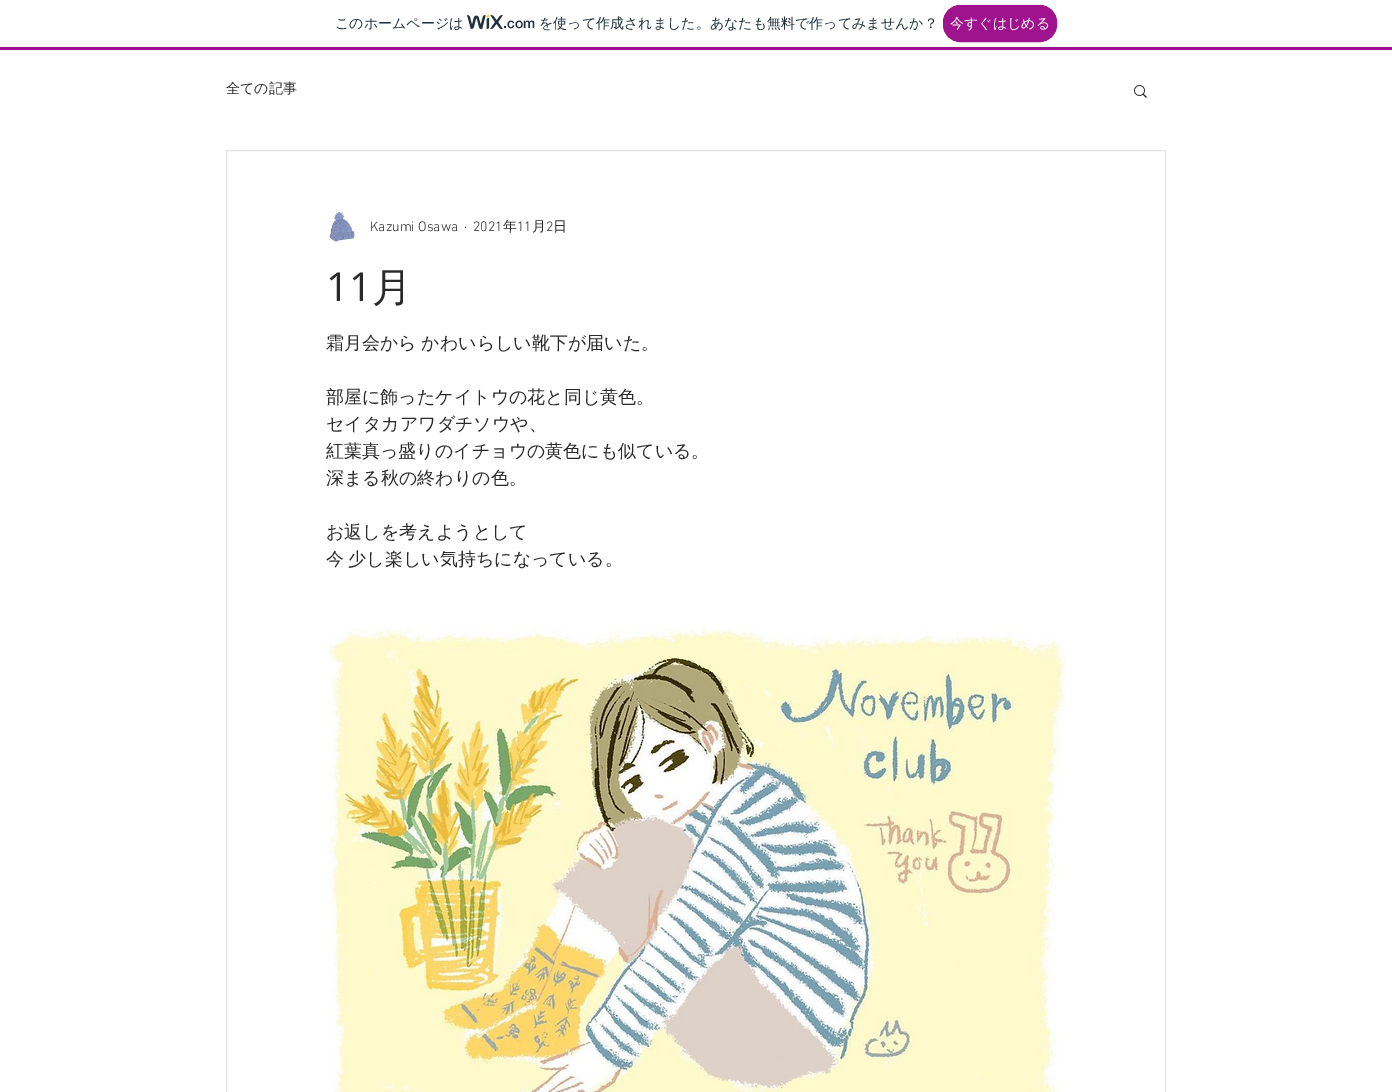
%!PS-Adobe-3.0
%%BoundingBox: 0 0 1392 1092
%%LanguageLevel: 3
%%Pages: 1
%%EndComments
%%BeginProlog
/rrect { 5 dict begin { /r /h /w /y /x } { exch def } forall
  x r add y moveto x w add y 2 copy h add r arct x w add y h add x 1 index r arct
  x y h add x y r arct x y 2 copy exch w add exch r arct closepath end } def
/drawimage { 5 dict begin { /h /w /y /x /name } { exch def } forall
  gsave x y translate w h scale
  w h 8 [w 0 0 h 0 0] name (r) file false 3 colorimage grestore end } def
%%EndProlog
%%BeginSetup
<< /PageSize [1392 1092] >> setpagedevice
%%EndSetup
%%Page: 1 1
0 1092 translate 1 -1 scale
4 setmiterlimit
1 setgray
0 0 1392 1092 rectfill
0.627 0.075 0.557 setrgbcolor
0 47 1392 3 rectfill
(images/1.raw) 467 15 36 15 drawimage
943.5 5.5 113 36 16.5 rrect gsave fill grestore
stroke
(images/2.raw) 1134 85 13 13 drawimage
0.902 setgray
226.5 150.5 939 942 rectstroke
(images/3.raw) 329 211 26 31 drawimage
(images/4.raw) 326 628 740 464 drawimage
/WenQuanYiZenHei-Medium [14 0 0 -14 0 0] selectfont
0.125 0.188 0.235 setrgbcolor
335 28 moveto (このホームページは) show
/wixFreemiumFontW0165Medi-Medium [14 0 0 -14 0 0] selectfont
503 28 moveto (.com) show
/WenQuanYiZenHei-Medium [14 0 0 -14 0 0] selectfont
539 28 moveto (を使って作成されました。あなたも無料で作ってみませんか？) show
1 setgray
950 28 moveto (今すぐはじめる) show
0.165 setgray
226 93 moveto (全ての記事) show
/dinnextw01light-Light [14 0 0 -14 0 0] selectfont
370 231 moveto (Kazumi Osawa) show
464 231 moveto (·) show
473 231 moveto (2021) show
/WenQuanYiZenHei-Medium [14 0 0 -14 0 0] selectfont
503 231 moveto (年) show
/dinnextw01light-Light [14 0 0 -14 0 0] selectfont
517 231 moveto (11) show
/WenQuanYiZenHei-Medium [14 0 0 -14 0 0] selectfont
532 231 moveto (月) show
/dinnextw01light-Light [14 0 0 -14 0 0] selectfont
546 231 moveto (2) show
/WenQuanYiZenHei-Medium [14 0 0 -14 0 0] selectfont
553 231 moveto (日) show
/OpenSans-Regular [40 0 0 -40 0 0] selectfont
326 301 moveto (11) show
/WenQuanYiZenHei-Medium [40 0 0 -40 0 0] selectfont
372 301 moveto (月) show
/WenQuanYiZenHei-Medium [18 0 0 -18 0 0] selectfont
326 349 moveto -1 0 32 (霜月会から かわいらしい靴下が届いた。) widthshow
326 403 moveto (部屋に飾ったケイトウの花と同じ黄色。) show
326 430 moveto (セイタカアワダチソウや、) show
326 457 moveto (紅葉真っ盛りのイチョウの黄色にも似ている。) show
326 484 moveto (深まる秋の終わりの色。) show
326 538 moveto (お返しを考えようとして) show
326 565 moveto -1 0 32 (今 少し楽しい気持ちになっている。) widthshow
showpage
%%EOF
